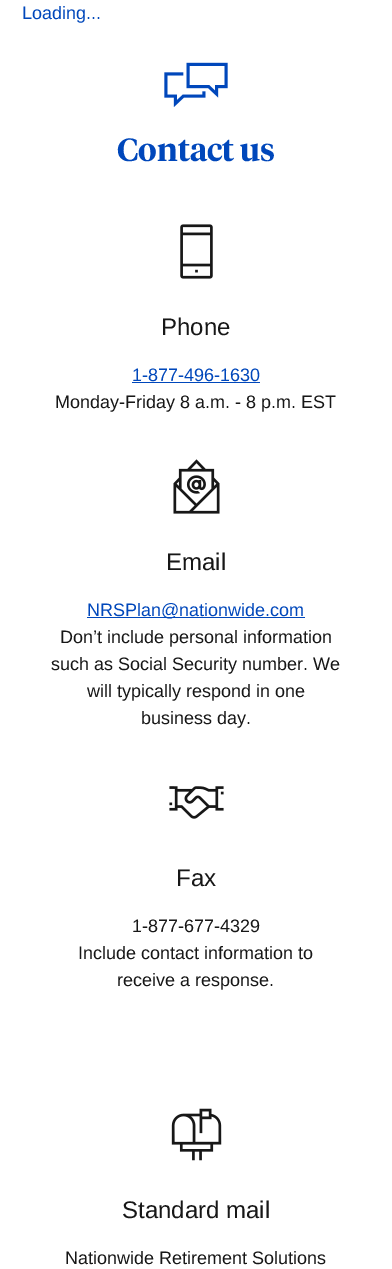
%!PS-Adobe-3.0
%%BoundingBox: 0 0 392 1269
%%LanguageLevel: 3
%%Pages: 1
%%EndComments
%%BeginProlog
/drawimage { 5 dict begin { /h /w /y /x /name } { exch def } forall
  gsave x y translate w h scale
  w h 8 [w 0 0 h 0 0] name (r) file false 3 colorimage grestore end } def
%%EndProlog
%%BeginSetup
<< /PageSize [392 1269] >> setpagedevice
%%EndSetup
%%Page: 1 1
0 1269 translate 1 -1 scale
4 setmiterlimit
1 setgray
0 0 392 1269 rectfill
(images/1.raw) 164 62 64 45 drawimage
(images/2.raw) 180 224 33 55 drawimage
0 0.278 0.733 setrgbcolor
132 382 128 1 rectfill
(images/3.raw) 173 459 47 55 drawimage
87 617 218 1 rectfill
(images/4.raw) 169 786 55 33 drawimage
(images/5.raw) 171 1108 51 53 drawimage
/LiberationSans-Regular [18 0 0 -18 0 0] selectfont
22 19 moveto (Loading...) show
/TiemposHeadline-SemiBold [32 0 0 -32 0 0] selectfont
117 161 moveto (Contact us) show
/LiberationSans-Regular [24 0 0 -24 0 0] selectfont
0.09 setgray
161 335 moveto (Phone) show
/LiberationSans-Regular [18 0 0 -18 0 0] selectfont
0 0.278 0.733 setrgbcolor
132 381 moveto (1-877-496-1630) show
0.09 setgray
55 408 moveto (Monday-Friday 8 a.m. - 8 p.m. EST) show
/LiberationSans-Regular [24 0 0 -24 0 0] selectfont
166 570 moveto (Email) show
/LiberationSans-Regular [18 0 0 -18 0 0] selectfont
0 0.278 0.733 setrgbcolor
87 616 moveto (NRSPlan@nationwide.com) show
0.09 setgray
60 643 moveto (Don’t include personal information) show
51 670 moveto (such as Social Security number. We) show
87 697 moveto (will typically respond in one) show
141 724 moveto (business day.) show
/LiberationSans-Regular [24 0 0 -24 0 0] selectfont
176 886 moveto (Fax) show
/LiberationSans-Regular [18 0 0 -18 0 0] selectfont
132 932 moveto (1-877-677-4329) show
78 959 moveto (Include contact information to) show
117 986 moveto (receive a response.) show
/LiberationSans-Regular [24 0 0 -24 0 0] selectfont
122 1218 moveto (Standard mail) show
/LiberationSans-Regular [18 0 0 -18 0 0] selectfont
65 1264 moveto (Nationwide Retirement Solutions) show
showpage
%%EOF
